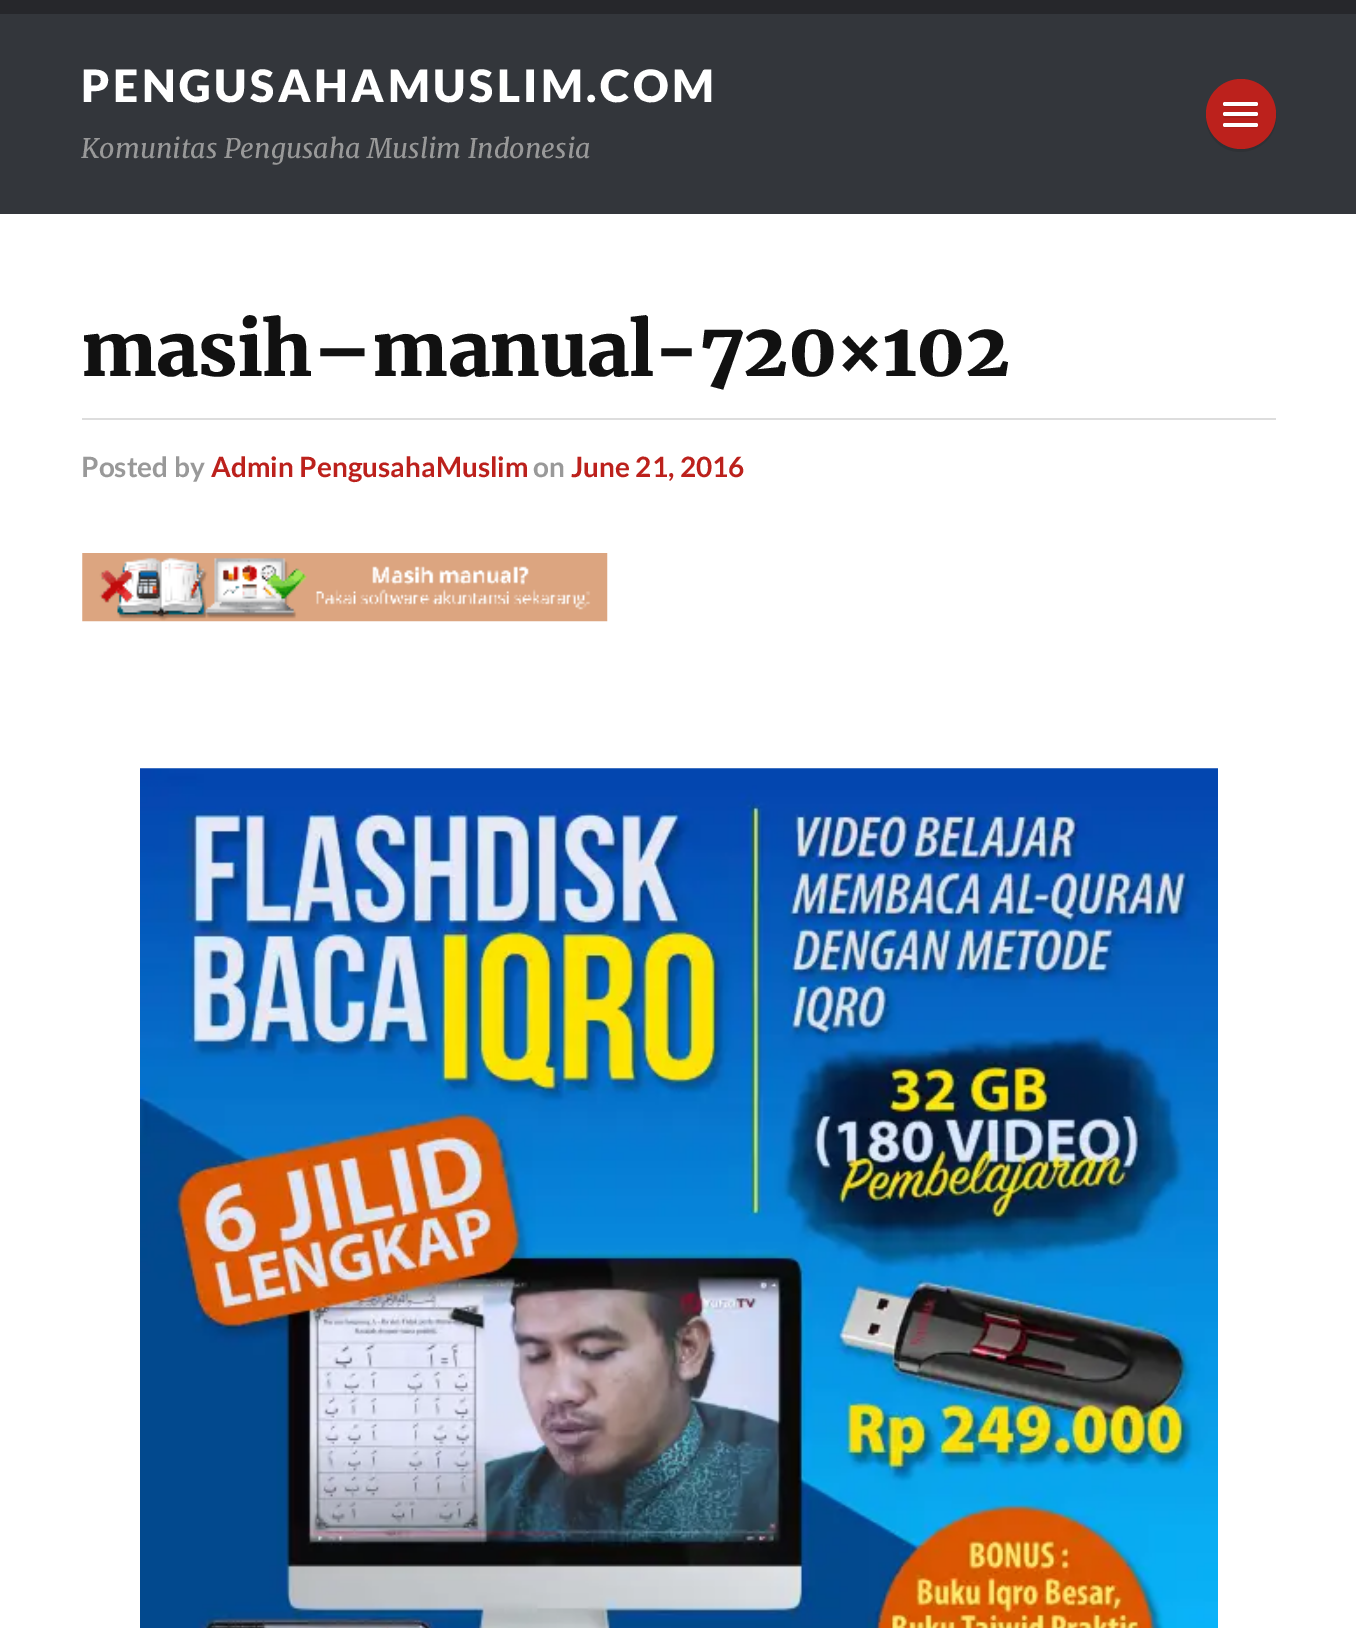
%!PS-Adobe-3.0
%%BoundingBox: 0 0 1356 1628
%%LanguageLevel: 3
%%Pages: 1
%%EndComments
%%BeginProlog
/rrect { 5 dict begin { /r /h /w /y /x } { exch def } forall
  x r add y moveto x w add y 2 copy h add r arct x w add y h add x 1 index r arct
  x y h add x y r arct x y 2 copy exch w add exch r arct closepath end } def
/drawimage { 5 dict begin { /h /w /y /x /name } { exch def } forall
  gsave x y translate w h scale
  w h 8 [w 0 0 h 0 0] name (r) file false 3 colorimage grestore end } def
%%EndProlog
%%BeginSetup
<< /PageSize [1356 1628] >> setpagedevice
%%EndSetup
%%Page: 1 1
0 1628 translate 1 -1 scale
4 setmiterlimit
1 setgray
0 0 1356 1628 rectfill
0.2 0.212 0.231 setrgbcolor
0 14 1356 200 rectfill
0.149 0.153 0.169 setrgbcolor
0 0 1356 14 rectfill
0.18 0.192 0.208 setrgbcolor
newpath 1206 118 moveto 1206 125 1208 132 1212 137 curveto 1233 167 1280 148 1276 113 curveto 1276 120 1274 127 1270 133 curveto 1252 160 1210 150 1206 118 curveto closepath fill
0.737 0.129 0.11 setrgbcolor
newpath 1241 114 35 0 360 arc closepath fill
0.663 0.118 0.098 setrgbcolor
newpath 1223.5 104 moveto 1222.5 105 1223 106.5 1224.5 107 curveto 1251 107 lineto 1251.5 107 1259.5 108 1258 104.5 curveto 1256.5 105 lineto 1254 105.5 1224.5 105 1224 104.5 curveto closepath fill
1 setgray
1223 102 35 4 2 rrect fill
0.663 0.118 0.098 setrgbcolor
newpath 1223.5 114.5 moveto 1223 115 1223 116 1223 116.5 curveto 1223.5 119 1229 118 1230 118 curveto 1251 118 lineto 1251 118 1260 119 1257.5 115 curveto 1256.5 115.5 lineto 1225 115.5 lineto 1224.5 115.5 1224 115 1223.5 114.5 curveto closepath fill
1 setgray
1223 112 35 4 2 rrect fill
0.663 0.118 0.098 setrgbcolor
newpath 1223.5 125 moveto 1222.5 126 1223 127.5 1224.5 128 curveto 1251 128 lineto 1251.5 128 1259.5 129 1258 125.5 curveto 1256.5 126 lineto 1254 126.5 1224.5 126 1224 125.5 curveto closepath fill
1 setgray
1223 123 35 4 2 rrect fill
0.867 setgray
82 418 1194 2 rectfill
(images/1.raw) 82 553 526 69 drawimage
(images/2.raw) 140 768 1078 860 drawimage
/Lato-Black [44.6 0 0 -44.6 0 0] selectfont
1 setgray
81 102 moveto 3.5 0 (PENGUSAHAMUSLIM.COM) ashow
/Merriweather-Italic [26.75 0 0 -26.75 0 0] selectfont
0.6 setgray
81 158 moveto (Komunitas Pengusaha Muslim Indonesia) show
/Merriweather-Black [74.4 0 0 -74.4 0 0] selectfont
0.067 setgray
81 376 moveto -0.75 0 (masih–manual-720×102) ashow
/Lato-Bold [28 0 0 -28 0 0] selectfont
0.6 setgray
81 477 moveto (Posted by) show
0.737 0.129 0.11 setrgbcolor
211 477 moveto (Admin PengusahaMuslim) show
0.6 setgray
533 477 moveto (on) show
0.737 0.129 0.11 setrgbcolor
571 477 moveto (June 21, 2016) show
showpage
%%EOF
